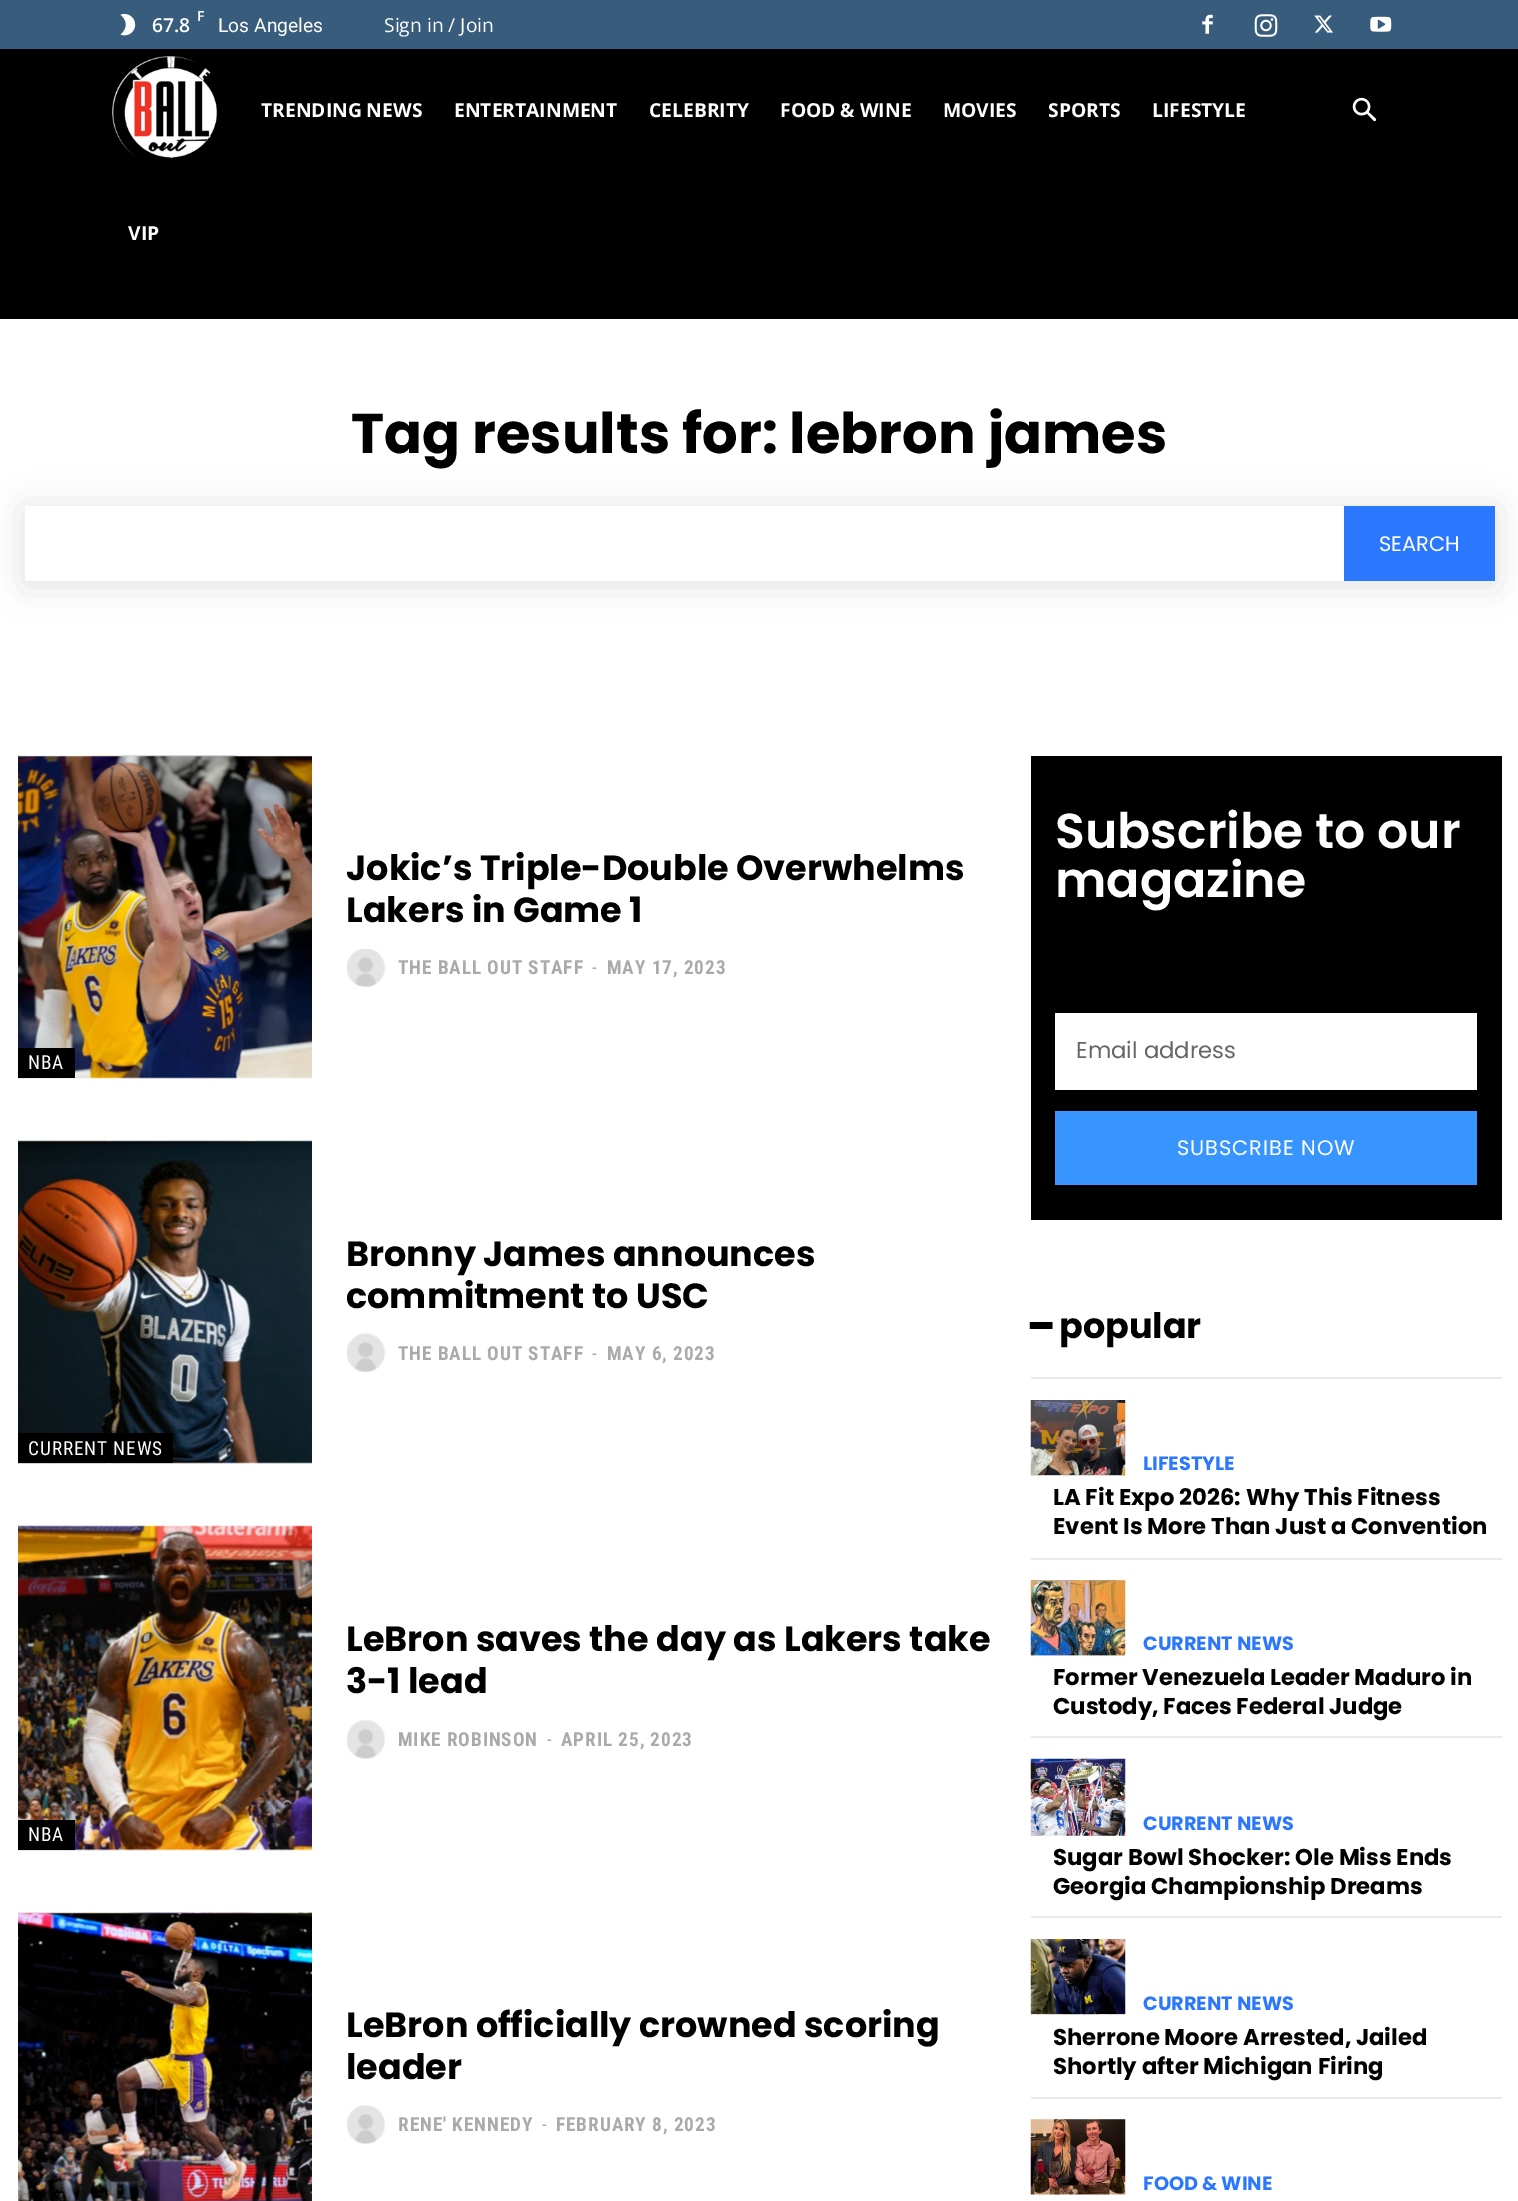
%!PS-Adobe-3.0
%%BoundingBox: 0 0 1518 2201
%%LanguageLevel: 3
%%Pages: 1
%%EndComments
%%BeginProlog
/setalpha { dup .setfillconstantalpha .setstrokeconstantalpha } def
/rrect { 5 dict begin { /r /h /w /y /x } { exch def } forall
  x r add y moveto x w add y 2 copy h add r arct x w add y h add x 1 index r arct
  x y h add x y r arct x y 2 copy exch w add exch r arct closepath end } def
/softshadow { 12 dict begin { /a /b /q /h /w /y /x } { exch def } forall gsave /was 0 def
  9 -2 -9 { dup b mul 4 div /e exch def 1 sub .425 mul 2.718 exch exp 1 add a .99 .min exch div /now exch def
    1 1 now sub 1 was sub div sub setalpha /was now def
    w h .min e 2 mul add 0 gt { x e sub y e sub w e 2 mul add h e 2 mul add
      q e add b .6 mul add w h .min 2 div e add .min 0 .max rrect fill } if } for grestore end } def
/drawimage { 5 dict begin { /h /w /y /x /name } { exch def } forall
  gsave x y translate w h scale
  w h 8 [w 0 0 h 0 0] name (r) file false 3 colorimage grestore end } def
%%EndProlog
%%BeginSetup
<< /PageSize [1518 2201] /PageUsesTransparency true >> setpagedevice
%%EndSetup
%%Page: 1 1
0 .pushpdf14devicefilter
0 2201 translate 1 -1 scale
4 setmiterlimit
1 setgray
0 0 1518 2201 rectfill
0.22 0.361 0.482 setrgbcolor
0 0 1518 49 rectfill
(images/1.raw) 120 13 16 23 drawimage
(images/2.raw) 1202 14 11 20 drawimage
(images/3.raw) 1254 14 24 23 drawimage
(images/4.raw) 1314 15 19 18 drawimage
(images/5.raw) 1370 16 22 16 drawimage
0 setgray
0 49 1518 270 rectfill
(images/6.raw) 112 56 106 104 drawimage
(images/7.raw) 1352 97 25 25 drawimage
25 509 1470 76 0 17.5 0.12 softshadow
1 setgray
25 506 1319 75 rectfill
0.169 0.471 1 setrgbcolor
1344 506 151 75 rectfill
(images/8.raw) 347 949 39 39 drawimage
(images/9.raw) 18 755 294 324 drawimage
0 setgray
18 1048 57 30 rectfill
(images/10.raw) 347 1333 39 40 drawimage
(images/11.raw) 18 1140 294 324 drawimage
18 1433 155 30 rectfill
(images/12.raw) 347 1720 39 39 drawimage
(images/13.raw) 18 1525 294 326 drawimage
18 1820 57 30 rectfill
(images/14.raw) 18 1912 294 289 drawimage
(images/12.raw) 347 2105 39 39 drawimage
1031 756 471 464 rectfill
1 setgray
1055 1013 422 77 rectfill
0.22 0.58 1 setrgbcolor
1055 1111 422 74 rectfill
0.918 setgray
1031 1377 471 2 rectfill
(images/15.raw) 1030 1400 96 76 drawimage
1031 1558 471 2 rectfill
(images/16.raw) 1030 1580 96 76 drawimage
1031 1736 471 2 rectfill
(images/17.raw) 1030 1758 96 78 drawimage
1031 1916 471 2 rectfill
(images/18.raw) 1030 1939 96 76 drawimage
1031 2097 471 2 rectfill
(images/19.raw) 1030 2119 96 76 drawimage
/OpenSans-SemiBold [14 0 0 -14 0 0] selectfont
1 setgray
197 21 moveto (F) show
/OpenSans-SemiBold [19.25 0 0 -19.25 0 0] selectfont
152 32 moveto (67.8) show
/Roboto-Regular [19.25 0 0 -19.25 0 0] selectfont
218 32 moveto (Los Angeles) show
/OpenSans-Regular [19.25 0 0 -19.25 0 0] selectfont
384 32 moveto (Sign in / Join) show
/OpenSans-Bold [19.25 0 0 -19.25 0 0] selectfont
261 117 moveto (TRENDING NEWS) show
454 117 moveto (ENTERTAINMENT) show
649 117 moveto (CELEBRITY) show
780 117 moveto (FOOD & WINE) show
943 117 moveto (MOVIES) show
1048 117 moveto (SPORTS) show
1152 117 moveto (LIFESTYLE) show
128 240 moveto (VIP) show
/Poppins-Bold [56 0 0 -56 0 0] selectfont
0 setgray
351 453 moveto (Tag results for: lebron james) show
/Poppins-Regular [21 0 0 -21 0 0] selectfont
1 setgray
1379 551 moveto (SEARCH) show
/Poppins-Bold [35 0 0 -35 0 0] selectfont
0 setgray
346 880 moveto (Jokic’s Triple-Double Overwhelms) show
346 922 moveto (Lakers in Game 1) show
/RobotoCondensed-Bold [19.25 0 0 -19.25 0 0] selectfont
0.667 setgray
398 974 moveto 0.9 0 (THE BALL OUT STAFF) ashow
/RobotoCondensed-Regular [19.25 0 0 -19.25 0 0] selectfont
592 974 moveto 0.9 0 (-) ashow
/RobotoCondensed-Bold [19.25 0 0 -19.25 0 0] selectfont
607 974 moveto 0.9 0 (MAY 17, 2023) ashow
/RobotoCondensed-Regular [19.25 0 0 -19.25 0 0] selectfont
1 setgray
28 1069 moveto 0.9 0 (NBA) ashow
/Poppins-Bold [35 0 0 -35 0 0] selectfont
0 setgray
346 1266 moveto (Bronny James announces) show
346 1308 moveto (commitment to USC) show
/RobotoCondensed-Bold [19.25 0 0 -19.25 0 0] selectfont
0.667 setgray
398 1360 moveto 0.9 0 (THE BALL OUT STAFF) ashow
/RobotoCondensed-Regular [19.25 0 0 -19.25 0 0] selectfont
592 1360 moveto 0.9 0 (-) ashow
/RobotoCondensed-Bold [19.25 0 0 -19.25 0 0] selectfont
607 1360 moveto 0.9 0 (MAY 6, 2023) ashow
/RobotoCondensed-Regular [19.25 0 0 -19.25 0 0] selectfont
1 setgray
28 1455 moveto 0.9 0 (CURRENT NEWS) ashow
/Poppins-Bold [35 0 0 -35 0 0] selectfont
0 setgray
346 1651 moveto (LeBron saves the day as Lakers take) show
346 1693 moveto (3-1 lead) show
/RobotoCondensed-Bold [19.25 0 0 -19.25 0 0] selectfont
0.667 setgray
398 1746 moveto 0.9 0 (MIKE ROBINSON) ashow
/RobotoCondensed-Regular [19.25 0 0 -19.25 0 0] selectfont
547 1746 moveto 0.9 0 (-) ashow
/RobotoCondensed-Bold [19.25 0 0 -19.25 0 0] selectfont
561 1746 moveto 0.9 0 (APRIL 25, 2023) ashow
/RobotoCondensed-Regular [19.25 0 0 -19.25 0 0] selectfont
1 setgray
28 1841 moveto 0.9 0 (NBA) ashow
/Poppins-Bold [35 0 0 -35 0 0] selectfont
0 setgray
346 2037 moveto (LeBron officially crowned scoring) show
346 2079 moveto (leader) show
/RobotoCondensed-Bold [19.25 0 0 -19.25 0 0] selectfont
0.667 setgray
398 2131 moveto 0.9 0 (RENE' KENNEDY) ashow
/RobotoCondensed-Regular [19.25 0 0 -19.25 0 0] selectfont
542 2131 moveto 0.9 0 (-) ashow
/RobotoCondensed-Bold [19.25 0 0 -19.25 0 0] selectfont
556 2131 moveto 0.9 0 (FEBRUARY 8, 2023) ashow
/Poppins-SemiBold [49 0 0 -49 0 0] selectfont
1 setgray
1055 848 moveto (Subscribe to our) show
1055 897 moveto (magazine) show
/Poppins-Regular [22.75 0 0 -22.75 0 0] selectfont
0.4 setgray
1076 1058 moveto (Email address) show
/Poppins-Regular [21 0 0 -21 0 0] selectfont
1 setgray
1177 1155 moveto 0.9 0 (SUBSCRIBE NOW) ashow
/DejaVuSans-Bold [35 0 0 -35 0 0] selectfont
0 setgray
1030 1338 moveto (━) show
/Poppins-Bold [35 0 0 -35 0 0] selectfont
1059 1338 moveto (popular) show
/Poppins-Bold [19.25 0 0 -19.25 0 0] selectfont
0.169 0.471 1 setrgbcolor
1143 1470 moveto (LIFESTYLE) show
/Poppins-Bold [22.75 0 0 -22.75 0 0] selectfont
0 setgray
1053 1505 moveto (LA Fit Expo 2026: Why This Fitness) show
1053 1534 moveto (Event Is More Than Just a Convention) show
/Poppins-Bold [19.25 0 0 -19.25 0 0] selectfont
0.169 0.471 1 setrgbcolor
1143 1650 moveto (CURRENT NEWS) show
/Poppins-Bold [22.75 0 0 -22.75 0 0] selectfont
0 setgray
1053 1685 moveto (Former Venezuela Leader Maduro in) show
1053 1714 moveto (Custody, Faces Federal Judge) show
/Poppins-Bold [19.25 0 0 -19.25 0 0] selectfont
0.169 0.471 1 setrgbcolor
1143 1830 moveto (CURRENT NEWS) show
/Poppins-Bold [22.75 0 0 -22.75 0 0] selectfont
0 setgray
1053 1865 moveto (Sugar Bowl Shocker: Ole Miss Ends) show
1053 1894 moveto (Georgia Championship Dreams) show
/Poppins-Bold [19.25 0 0 -19.25 0 0] selectfont
0.169 0.471 1 setrgbcolor
1143 2010 moveto (CURRENT NEWS) show
/Poppins-Bold [22.75 0 0 -22.75 0 0] selectfont
0 setgray
1053 2045 moveto (Sherrone Moore Arrested, Jailed) show
1053 2074 moveto (Shortly after Michigan Firing) show
/Poppins-Bold [19.25 0 0 -19.25 0 0] selectfont
0.169 0.471 1 setrgbcolor
1143 2190 moveto (FOOD & WINE) show
.poppdf14devicefilter showpage
%%EOF
